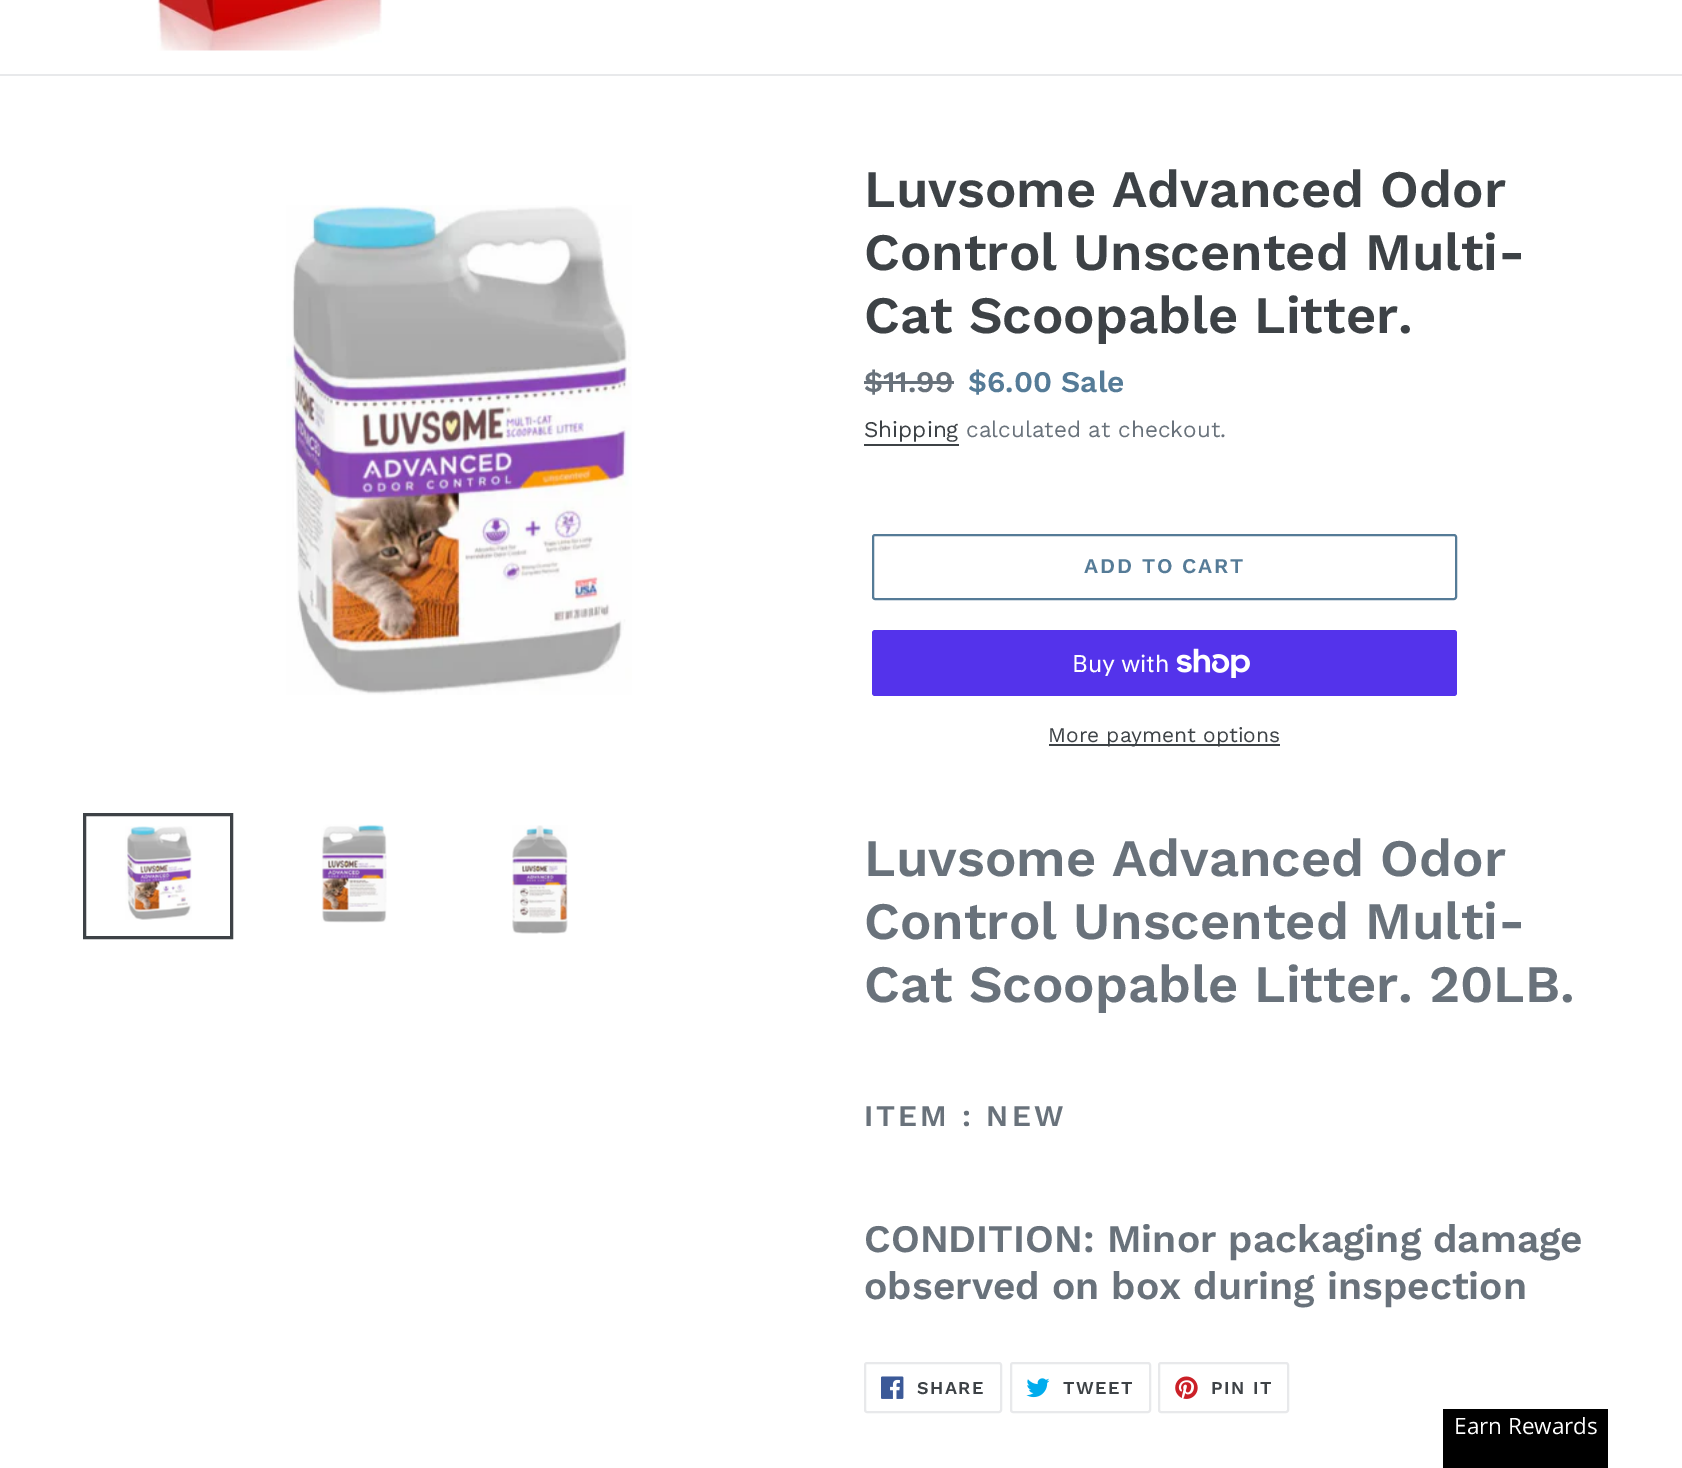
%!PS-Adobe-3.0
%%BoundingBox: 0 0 1682 1468
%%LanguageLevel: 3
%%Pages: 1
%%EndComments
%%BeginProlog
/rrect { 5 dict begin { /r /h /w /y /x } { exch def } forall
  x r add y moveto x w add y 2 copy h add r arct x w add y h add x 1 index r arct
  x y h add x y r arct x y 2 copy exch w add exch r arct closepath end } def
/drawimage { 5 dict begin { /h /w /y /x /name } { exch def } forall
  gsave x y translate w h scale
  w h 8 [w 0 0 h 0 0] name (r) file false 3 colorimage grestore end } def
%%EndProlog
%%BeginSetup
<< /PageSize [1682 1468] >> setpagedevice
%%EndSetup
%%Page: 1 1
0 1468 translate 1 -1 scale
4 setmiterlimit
1 setgray
0 0 1682 1468 rectfill
0.91 0.914 0.922 setrgbcolor
0 74 1682 2 rectfill
(images/1.raw) 157 0 225 51 drawimage
(images/2.raw) 286 205 346 490 drawimage
0.239 0.259 0.275 setrgbcolor
3 setlinewidth
84.5 814.5 147 123 rectstroke
(images/3.raw) 125 826 67 94 drawimage
(images/4.raw) 321 824 66 99 drawimage
(images/5.raw) 512 825 56 109 drawimage
0.412 0.447 0.482 setrgbcolor
864 381 90 3 rectfill
0.239 0.259 0.275 setrgbcolor
864 444 95 2 rectfill
0.333 0.482 0.592 setrgbcolor
2 setlinewidth
873 535 583 64 2 rrect stroke
0.329 0.2 0.922 setrgbcolor
872 630 585 66 3 rrect fill
(images/6.raw) 1176 648 74 30 drawimage
0.239 0.259 0.275 setrgbcolor
1049 744 231 2 rectfill
0.91 0.914 0.922 setrgbcolor
865 1363 136 49 2 rrect stroke
(images/7.raw) 881 1376 23 23 drawimage
1011 1363 139 49 2 rrect stroke
(images/8.raw) 1026 1378 24 20 drawimage
1159 1363 129 49 2 rrect stroke
(images/9.raw) 1175 1376 23 23 drawimage
0 setgray
1443 1409 165 59 rectfill
/WorkSans-SemiBold [52.5 0 0 -52.5 0 0] selectfont
0.239 0.259 0.275 setrgbcolor
864 207 moveto (Luvsome Advanced Odor) show
864 270 moveto (Control Unscented Multi-) show
864 333 moveto (Cat Scoopable Litter.) show
/WorkSans-SemiBold [30 0 0 -30 0 0] selectfont
0.412 0.447 0.482 setrgbcolor
864 392 moveto ($11.99) show
0.333 0.482 0.592 setrgbcolor
968 392 moveto ($6.00 Sale) show
/WorkSans-Regular [22.5 0 0 -22.5 0 0] selectfont
0.239 0.259 0.275 setrgbcolor
864 437 moveto (Shipping) show
0.412 0.447 0.482 setrgbcolor
966 437 moveto (calculated at checkout.) show
/WorkSans-SemiBold [21 0 0 -21 0 0] selectfont
0.333 0.482 0.592 setrgbcolor
1084 573 moveto 1.75 0 (ADD TO CART) ashow
/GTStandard-Regular [24 0 0 -24 0 0] selectfont
1 setgray
1072 672 moveto (Buy with) show
/WorkSans-Regular [21 0 0 -21 0 0] selectfont
0.239 0.259 0.275 setrgbcolor
1048 742 moveto (More payment options) show
/WorkSans-SemiBold [52.5 0 0 -52.5 0 0] selectfont
0.412 0.447 0.482 setrgbcolor
864 876 moveto (Luvsome Advanced Odor) show
864 939 moveto (Control Unscented Multi-) show
864 1002 moveto (Cat Scoopable Litter. 20LB.) show
/WorkSans-SemiBold [30 0 0 -30 0 0] selectfont
864 1126 moveto 3 0 (ITEM : NEW) ashow
/WorkSans-SemiBold [39 0 0 -39 0 0] selectfont
864 1252 moveto (CONDITION: Minor packaging damage) show
864 1299 moveto (observed on box during inspection) show
/WorkSans-SemiBold [18 0 0 -18 0 0] selectfont
0.239 0.259 0.275 setrgbcolor
917 1394 moveto 1.5 0 (SHARE) ashow
1063 1394 moveto 1.5 0 (TWEET) ashow
1211 1394 moveto 1.5 0 (PIN IT) ashow
/OpenSans-Regular [22.5 0 0 -22.5 0 0] selectfont
1 setgray
1454 1434 moveto (Earn Rewards) show
showpage
%%EOF
